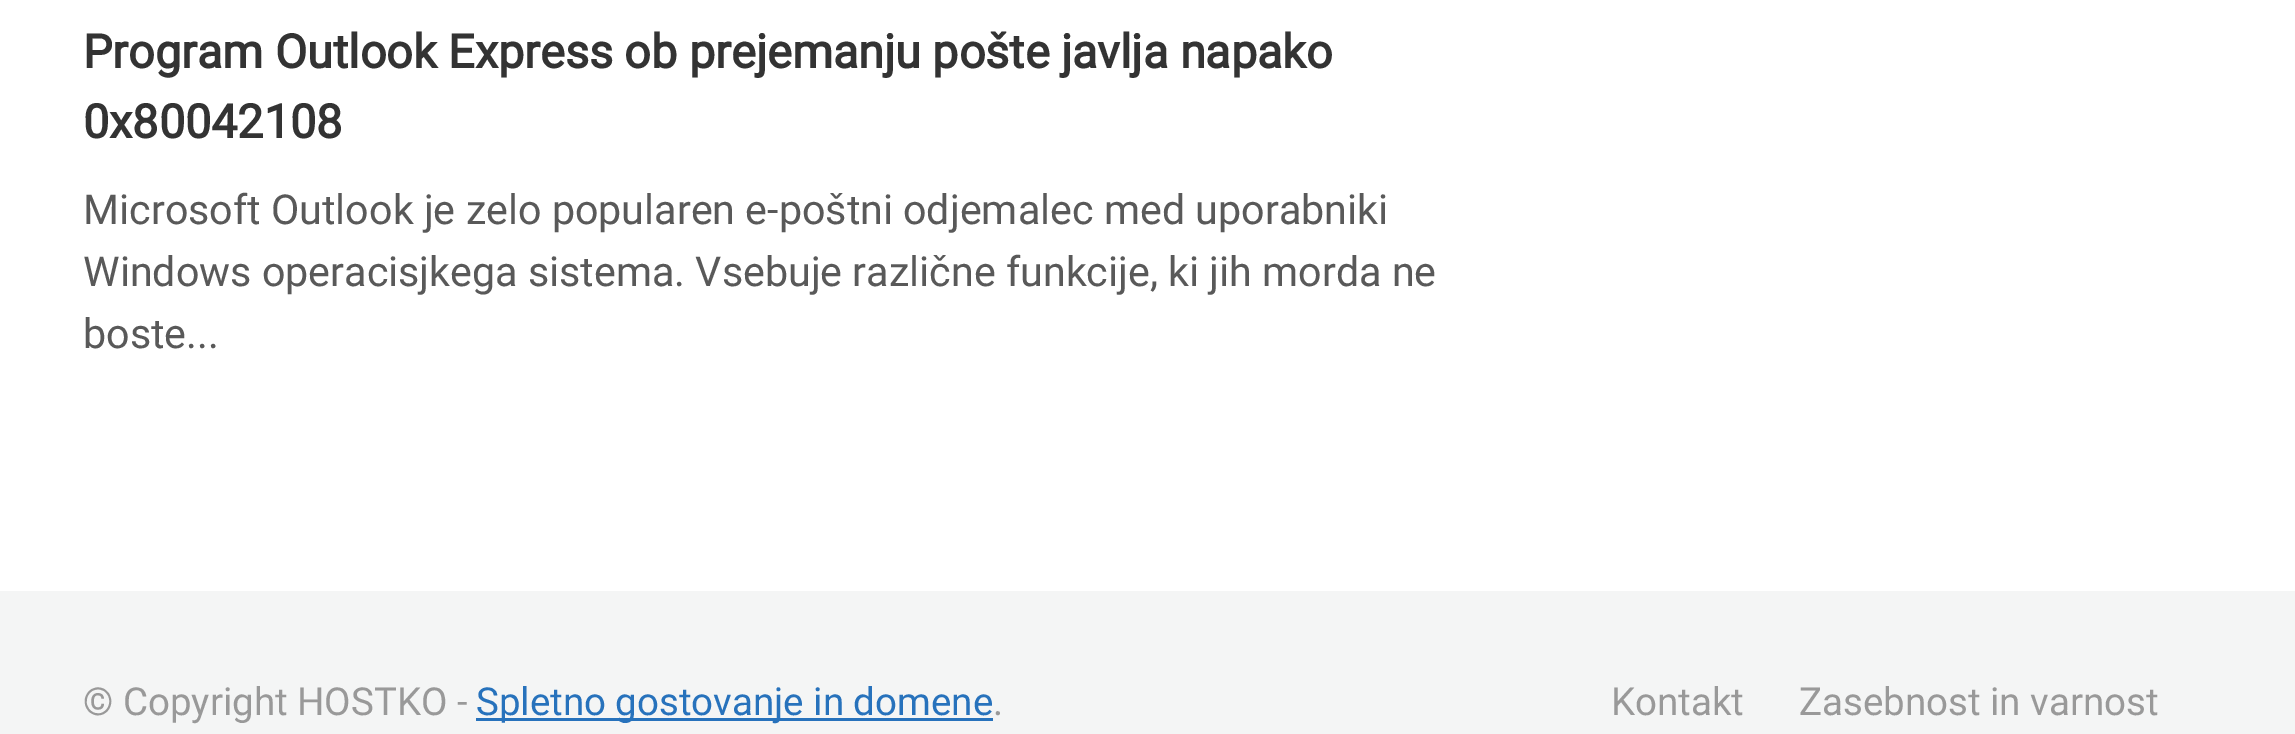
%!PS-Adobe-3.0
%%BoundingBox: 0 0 2295 734
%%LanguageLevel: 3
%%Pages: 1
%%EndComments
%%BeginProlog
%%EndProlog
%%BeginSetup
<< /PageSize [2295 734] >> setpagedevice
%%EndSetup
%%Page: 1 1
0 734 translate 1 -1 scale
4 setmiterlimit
1 setgray
0 0 2295 734 rectfill
0.957 0.961 0.961 setrgbcolor
0 591 2295 143 rectfill
0.153 0.447 0.737 setrgbcolor
476 718 517 3 rectfill
/Roboto-Bold [46.75 0 0 -46.75 0 0] selectfont
0.2 setgray
83 68 moveto (Program Outlook Express ob prejemanju pošte javlja napako) show
83 138 moveto (0x80042108) show
/Roboto-Regular [41.25 0 0 -41.25 0 0] selectfont
0.349 setgray
83 224 moveto (Microsoft Outlook je zelo popularen e-poštni odjemalec med uporabniki) show
83 286 moveto (Windows operacisjkega sistema. Vsebuje različne funkcije, ki jih morda ne) show
83 348 moveto (boste...) show
/Roboto-Regular [38.5 0 0 -38.5 0 0] selectfont
0.6 setgray
83 715 moveto (© Copyright HOSTKO -) show
0.153 0.447 0.737 setrgbcolor
476 715 moveto (Spletno gostovanje in domene) show
0.6 setgray
993 715 moveto (.) show
1611 715 moveto (Kontakt) show
1799 715 moveto (Zasebnost in varnost) show
showpage
%%EOF
